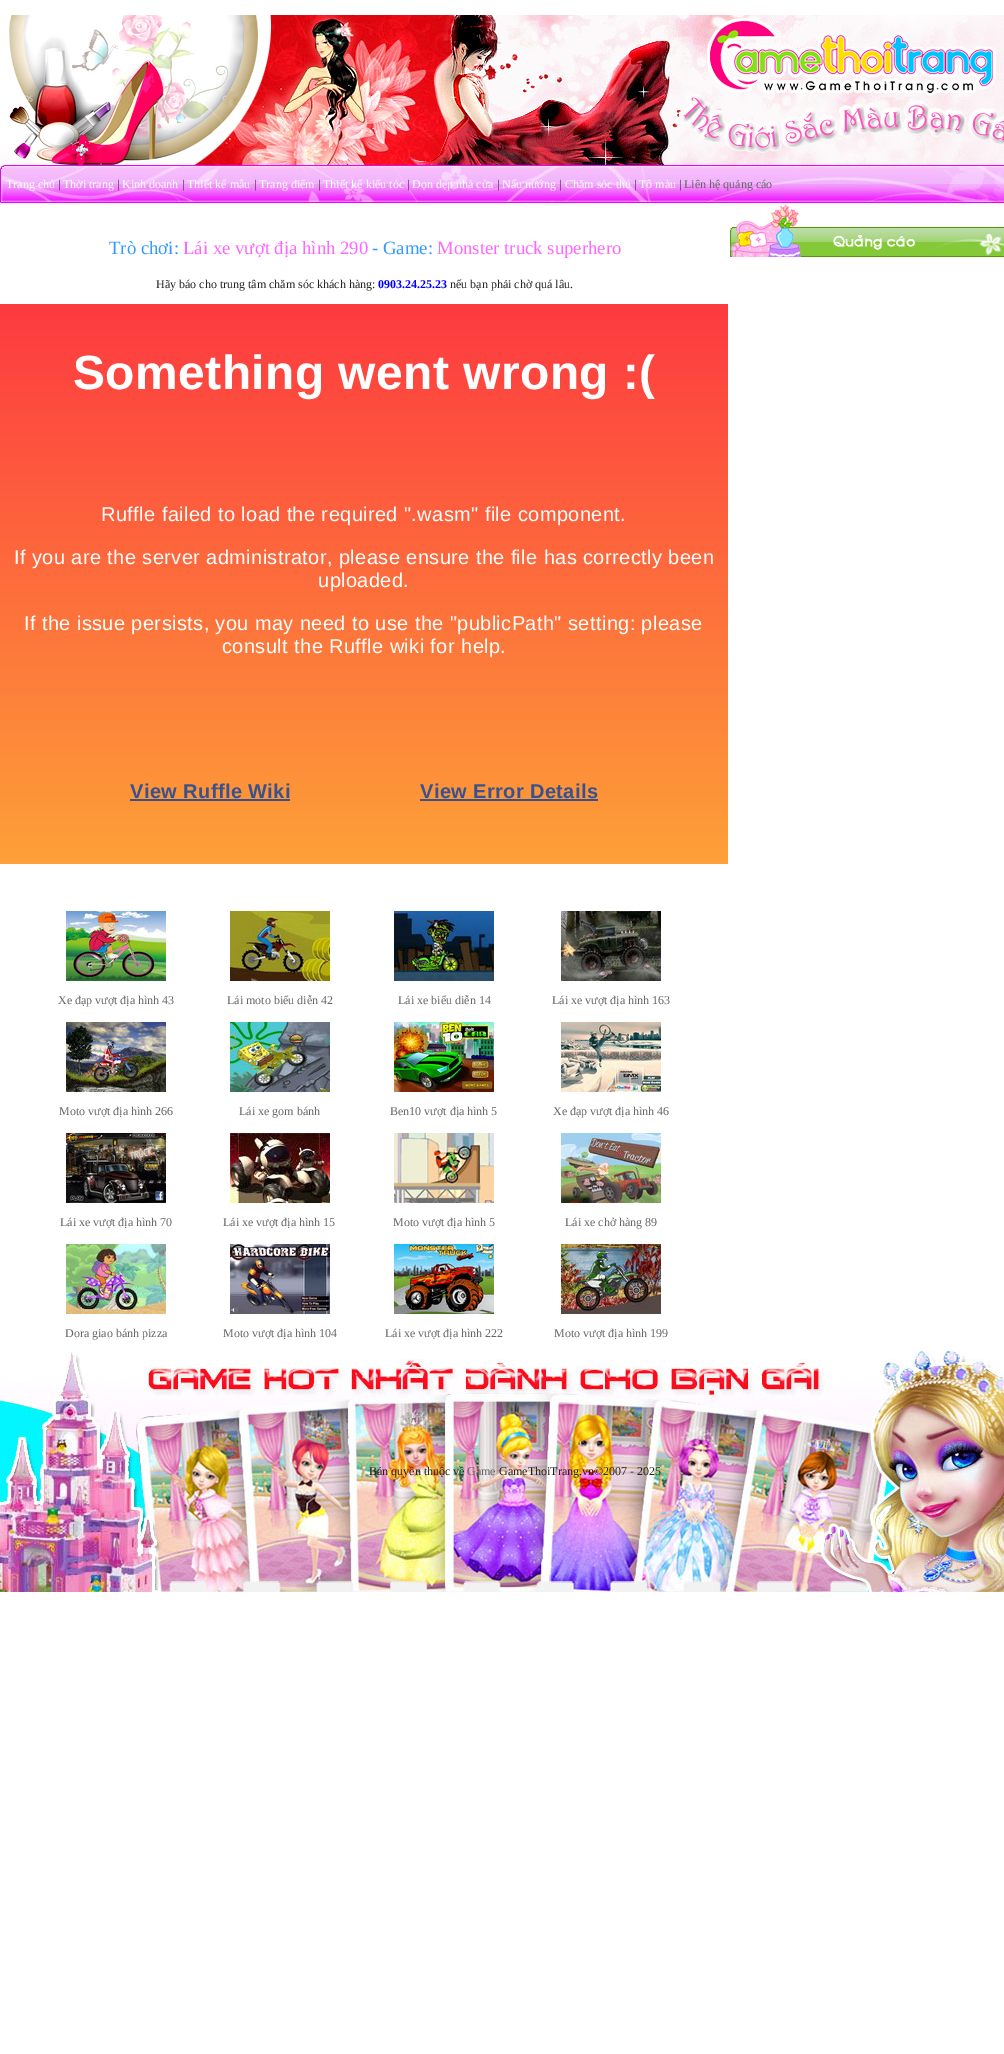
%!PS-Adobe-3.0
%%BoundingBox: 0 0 1004 2054
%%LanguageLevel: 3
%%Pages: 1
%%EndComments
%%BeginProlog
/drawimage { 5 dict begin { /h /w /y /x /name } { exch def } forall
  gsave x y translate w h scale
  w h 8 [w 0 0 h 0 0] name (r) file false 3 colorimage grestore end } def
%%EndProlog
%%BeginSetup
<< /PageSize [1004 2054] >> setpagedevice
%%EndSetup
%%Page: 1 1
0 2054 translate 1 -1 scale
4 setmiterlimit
1 setgray
0 0 1004 2054 rectfill
(images/1.raw) 0 15 1004 150 drawimage
(images/2.raw) 0 165 1004 38 drawimage
(images/3.raw) 730 204 274 53 drawimage
gsave newpath 0 304 moveto 728 304 lineto 728 864 lineto 0 864 lineto closepath clip newpath
<< /ShadingType 2 /ColorSpace /DeviceRGB /Coords [364 304 364 864] /Extend [true true] /Function << /FunctionType 2 /Domain [0 1] /C0 [0.992 0.227 0.251] /C1 [0.992 0.631 0.22] /N 1 >> >> shfill grestore
0.216 0.322 0.549 setrgbcolor
130 799 160 2 rectfill
420 799 178 2 rectfill
(images/4.raw) 66 911 100 70 drawimage
(images/5.raw) 230 911 100 70 drawimage
(images/6.raw) 394 911 100 70 drawimage
(images/7.raw) 561 911 100 70 drawimage
(images/8.raw) 66 1022 100 70 drawimage
(images/9.raw) 230 1022 100 70 drawimage
(images/10.raw) 394 1022 100 70 drawimage
(images/11.raw) 561 1022 100 70 drawimage
(images/12.raw) 66 1133 100 70 drawimage
(images/13.raw) 230 1133 100 70 drawimage
(images/14.raw) 394 1133 100 70 drawimage
(images/15.raw) 561 1133 100 70 drawimage
(images/16.raw) 66 1244 100 70 drawimage
(images/17.raw) 230 1244 100 70 drawimage
(images/18.raw) 394 1244 100 70 drawimage
(images/19.raw) 561 1244 100 70 drawimage
(images/20.raw) 0 1351 1004 241 drawimage
/LiberationSerif-Regular [12 0 0 -12 0 0] selectfont
1 setgray
6 188 moveto (Trang chủ) show
0.133 setgray
58 188 moveto (|) show
1 setgray
63 188 moveto (Thời trang) show
0.133 setgray
117 188 moveto (|) show
1 setgray
122 188 moveto (Kinh doanh) show
0.133 setgray
182 188 moveto (|) show
1 setgray
187 188 moveto (Thiết kế mẫu) show
0.133 setgray
254 188 moveto (|) show
1 setgray
259 188 moveto (Trang điểm) show
0.133 setgray
318 188 moveto (|) show
1 setgray
323 188 moveto (Thiết kế kiểu tóc) show
0.133 setgray
407 188 moveto (|) show
1 setgray
412 188 moveto (Dọn dẹp nhà cửa) show
0.133 setgray
497 188 moveto (|) show
1 setgray
502 188 moveto (Nấu nướng) show
0.133 setgray
559 188 moveto (|) show
1 setgray
565 188 moveto (Chăm sóc thú) show
0.133 setgray
634 188 moveto (|) show
1 setgray
639 188 moveto (Tô màu) show
0.133 setgray
679 188 moveto (|) show
0.4 setgray
684 188 moveto (Liên hệ quảng cáo) show
/LiberationSerif-Regular [18.75 0 0 -18.75 0 0] selectfont
0.2 0.6 1 setrgbcolor
109 254 moveto (Trò chơi:) show
1 0.4 1 setrgbcolor
183 254 moveto (Lái xe vượt địa hình 290) show
0.2 0.6 1 setrgbcolor
372 254 moveto (- Game:) show
1 0.4 1 setrgbcolor
437 254 moveto (Monster truck superhero) show
/LiberationSerif-Regular [12 0 0 -12 0 0] selectfont
0.133 setgray
156 288 moveto (Hãy báo cho trung tâm chăm sóc khách hàng:) show
/LiberationSerif-Bold [12 0 0 -12 0 0] selectfont
0 0 1 setrgbcolor
378 288 moveto (0903.24.25.23) show
/LiberationSerif-Regular [12 0 0 -12 0 0] selectfont
0.133 setgray
450 288 moveto (nếu bạn phải chờ quá lâu.) show
/LiberationSans-Bold [48 0 0 -48 0 0] selectfont
1 setgray
73 389 moveto 0.4 0 (Something went wrong :\() ashow
/LiberationSans-Regular [20 0 0 -20 0 0] selectfont
101 521 moveto 0.4 0 (Ruffle failed to load the required ".wasm" file component.) ashow
14 564 moveto 0.4 0 (If you are the server administrator, please ensure the file has correctly been) ashow
318 587 moveto 0.4 0 (uploaded.) ashow
24 630 moveto 0.4 0 (If the issue persists, you may need to use the "publicPath" setting: please) ashow
222 653 moveto 0.4 0 (consult the Ruffle wiki for help.) ashow
/LiberationSans-Bold [20 0 0 -20 0 0] selectfont
0.216 0.322 0.549 setrgbcolor
130 798 moveto 0.4 0 (View Ruffle Wiki) ashow
420 798 moveto 0.4 0 (View Error Details) ashow
/LiberationSerif-Regular [12 0 0 -12 0 0] selectfont
0.4 setgray
58 1004 moveto (Xe đạp vượt địa hình 43) show
227 1004 moveto (Lái moto biểu diễn 42) show
398 1004 moveto (Lái xe biểu diễn 14) show
552 1004 moveto (Lái xe vượt địa hình 163) show
59 1115 moveto (Moto vượt địa hình 266) show
239 1115 moveto (Lái xe gom bánh) show
390 1115 moveto (Ben10 vượt địa hình 5) show
553 1115 moveto (Xe đạp vượt địa hình 46) show
60 1226 moveto (Lái xe vượt địa hình 70) show
223 1226 moveto (Lái xe vượt địa hình 15) show
393 1226 moveto (Moto vượt địa hình 5) show
565 1226 moveto (Lái xe chở hàng 89) show
65 1337 moveto (Dora giao bánh pizza) show
223 1337 moveto (Moto vượt địa hình 104) show
385 1337 moveto (Lái xe vượt địa hình 222) show
554 1337 moveto (Moto vượt địa hình 199) show
0.133 setgray
369 1475 moveto (Bản quyền thuộc về) show
0.4 setgray
467 1475 moveto (Game) show
0.133 setgray
499 1475 moveto (GameThoiTrang.vn©2007 - 2025) show
showpage
%%EOF
